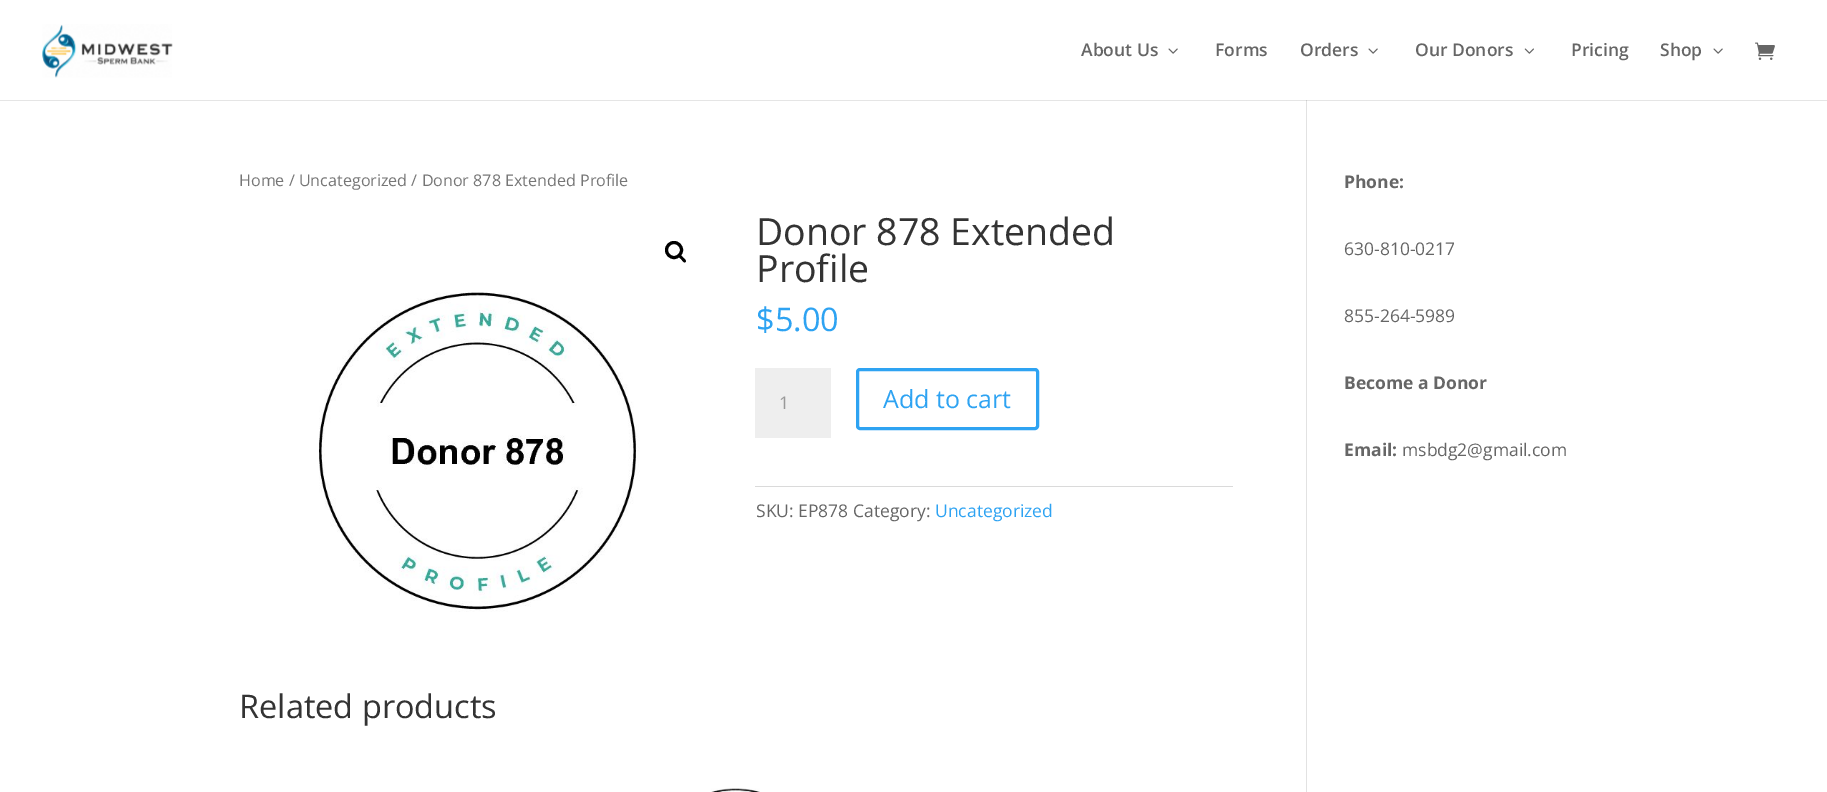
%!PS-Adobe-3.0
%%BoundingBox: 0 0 1827 792
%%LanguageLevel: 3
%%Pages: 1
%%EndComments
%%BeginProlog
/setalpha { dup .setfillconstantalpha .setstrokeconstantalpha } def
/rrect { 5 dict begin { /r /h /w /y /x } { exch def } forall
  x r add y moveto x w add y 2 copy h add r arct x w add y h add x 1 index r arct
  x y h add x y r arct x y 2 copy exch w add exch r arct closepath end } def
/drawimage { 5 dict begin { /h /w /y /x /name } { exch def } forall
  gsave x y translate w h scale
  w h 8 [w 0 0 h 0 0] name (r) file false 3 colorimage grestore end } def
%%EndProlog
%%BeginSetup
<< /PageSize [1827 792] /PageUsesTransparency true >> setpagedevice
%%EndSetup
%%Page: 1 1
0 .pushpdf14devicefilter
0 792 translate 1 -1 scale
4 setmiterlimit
1 setgray
0 0 1827 792 rectfill
0.886 setgray
1306 94 1 698 rectfill
0.1 setalpha
0 setgray
newpath 0 100 moveto 0 101 lineto 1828 101 lineto 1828 1 lineto 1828 100 lineto closepath fill
1 setalpha
1 setgray
1306 94 1 6 rectfill
(images/1.raw) 42 24 131 54 drawimage
(images/2.raw) 1168 48 10 6 drawimage
(images/2.raw) 1368 48 10 6 drawimage
(images/3.raw) 1524 48 10 6 drawimage
(images/2.raw) 1713 48 10 6 drawimage
(images/4.raw) 1755 42 20 18 drawimage
0 setgray
3 setlinewidth
newpath 674 250 7.5 0 360 arc closepath stroke
newpath 678.5 255 moveto 680 253.5 682 256.5 683 257.5 curveto 683.5 258 687 260.5 685.5 262 curveto 684 263.5 682 260 681 259 curveto 680.5 258.5 677 256 678.5 255 curveto closepath fill
(images/5.raw) 319 292 321 320 drawimage
0.933 setgray
755 368 76 70 rectfill
0.18 0.639 0.949 setrgbcolor
857.5 369.5 180 59 2.5 rrect stroke
0.855 setgray
755 486 478 1 rectfill
(images/6.raw) 711 788 49 4 drawimage
/OpenSans-SemiBold [17.5 0 0 -17.5 0 0] selectfont
0.4 setgray
1081 56 moveto (About Us) show
1215 56 moveto (Forms) show
1300 56 moveto (Orders) show
1415 56 moveto (Our Donors) show
1571 56 moveto (Pricing) show
1660 56 moveto (Shop) show
/OpenSans-Regular [16.1 0 0 -16.1 0 0] selectfont
0.463 setgray
239 186 moveto (Home / Uncategorized / Donor 878 Extended Profile) show
/OpenSans-Regular [37.5 0 0 -37.5 0 0] selectfont
0.2 setgray
756 245 moveto (Donor 878 Extended) show
756 282 moveto (Profile) show
/OpenSans-Regular [32.5 0 0 -32.5 0 0] selectfont
0.18 0.639 0.949 setrgbcolor
756 331 moveto ($5.00) show
/OpenSans-Regular [17.5 0 0 -17.5 0 0] selectfont
0.6 setgray
779 409 moveto (1) show
/OpenSans-Regular [25 0 0 -25 0 0] selectfont
0.18 0.639 0.949 setrgbcolor
883 408 moveto (Add to cart) show
/OpenSans-Regular [17.5 0 0 -17.5 0 0] selectfont
0.4 setgray
756 517 moveto (SKU: EP878 Category:) show
0.18 0.639 0.949 setrgbcolor
935 517 moveto (Uncategorized) show
/OpenSans-Regular [32.5 0 0 -32.5 0 0] selectfont
0.2 setgray
239 718 moveto (Related products) show
/OpenSans-Bold [17.5 0 0 -17.5 0 0] selectfont
0.4 setgray
1344 188 moveto (Phone:) show
/OpenSans-Regular [17.5 0 0 -17.5 0 0] selectfont
1344 255 moveto (630-810-0217) show
1344 322 moveto (855-264-5989) show
/OpenSans-Bold [17.5 0 0 -17.5 0 0] selectfont
1344 389 moveto (Become a Donor) show
1344 456 moveto (Email:) show
/OpenSans-Regular [17.5 0 0 -17.5 0 0] selectfont
1402 456 moveto (msbdg2@gmail.com) show
.poppdf14devicefilter showpage
%%EOF
